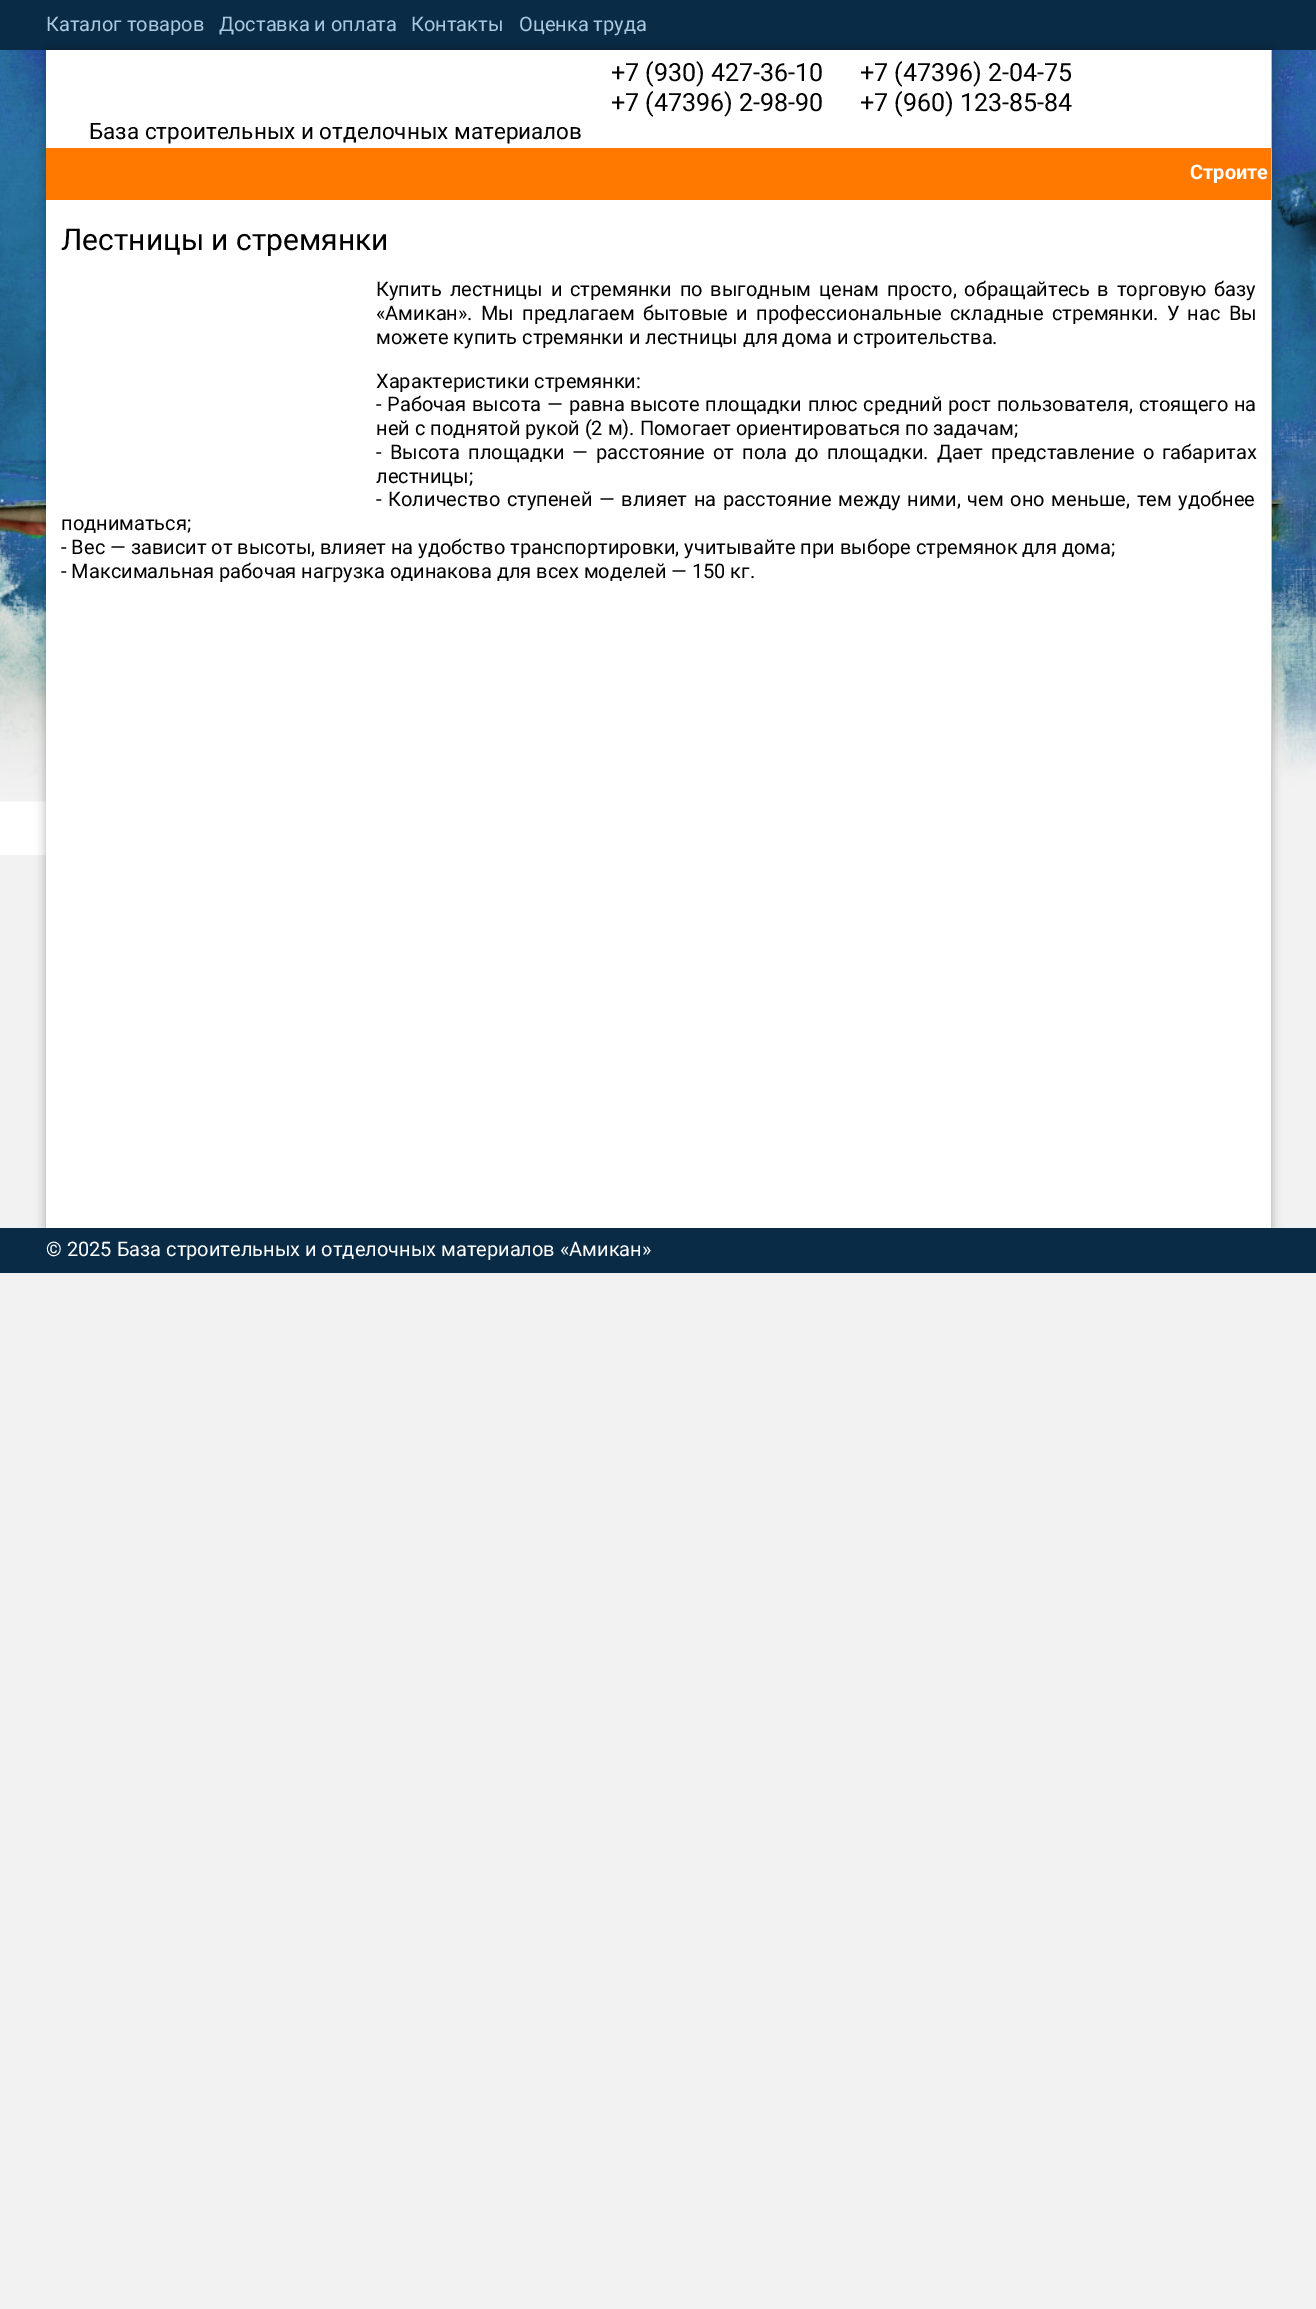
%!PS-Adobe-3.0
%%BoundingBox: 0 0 1316 2309
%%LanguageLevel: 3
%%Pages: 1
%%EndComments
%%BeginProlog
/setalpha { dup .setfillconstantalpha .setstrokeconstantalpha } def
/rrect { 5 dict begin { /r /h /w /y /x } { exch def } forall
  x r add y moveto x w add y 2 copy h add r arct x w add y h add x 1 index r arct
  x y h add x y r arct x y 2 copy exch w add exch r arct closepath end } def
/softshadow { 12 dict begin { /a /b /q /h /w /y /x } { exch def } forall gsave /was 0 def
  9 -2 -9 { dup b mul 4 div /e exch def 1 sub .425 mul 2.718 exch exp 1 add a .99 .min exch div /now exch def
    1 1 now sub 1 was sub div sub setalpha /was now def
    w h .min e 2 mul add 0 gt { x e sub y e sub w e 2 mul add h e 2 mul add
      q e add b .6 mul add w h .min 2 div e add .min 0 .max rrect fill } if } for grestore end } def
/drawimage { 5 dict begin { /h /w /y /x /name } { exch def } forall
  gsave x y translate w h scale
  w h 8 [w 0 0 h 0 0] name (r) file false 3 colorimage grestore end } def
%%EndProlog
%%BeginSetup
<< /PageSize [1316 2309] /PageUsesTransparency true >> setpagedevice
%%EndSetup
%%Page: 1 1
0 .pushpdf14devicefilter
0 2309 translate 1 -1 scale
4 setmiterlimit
0.949 setgray
0 0 1316 2309 rectfill
(images/1.raw) 0 50 1316 805 drawimage
0.035 0.169 0.275 setrgbcolor
0 0 1316 50 rectfill
0 setgray
46 50 1225 1178 0 5.5 0.3 softshadow
1 setgray
46 50 1225 1178 rectfill
1 0.475 0 setrgbcolor
46 148 1225 52 rectfill
0.035 0.169 0.275 setrgbcolor
0 1228 1316 45 rectfill
/Roboto-Regular [20 0 0 -20 0 0] selectfont
0.667 0.784 0.878 setrgbcolor
46 31 moveto (Каталог товаров) show
219 31 moveto (Доставка и оплата) show
411 31 moveto (Контакты) show
519 31 moveto (Оценка труда) show
/Roboto-Regular [25 0 0 -25 0 0] selectfont
0 setgray
611 81 moveto (+7 \(930\) 427-36-10) show
611 111 moveto (+7 \(47396\) 2-98-90) show
860 81 moveto (+7 \(47396\) 2-04-75) show
860 111 moveto (+7 \(960\) 123-85-84) show
/Roboto-Regular [22.5 0 0 -22.5 0 0] selectfont
89 139 moveto (База строительных и отделочных материалов) show
/Roboto-Bold [20 0 0 -20 0 0] selectfont
1 setgray
1190 179 moveto (Строите) show
/Roboto-Regular [30 0 0 -30 0 0] selectfont
0 setgray
61 250 moveto (Лестницы и стремянки) show
/Roboto-Regular [20 0 0 -20 0 0] selectfont
376 296 moveto 3 0 32 (Купить лестницы и стремянки по выгодным ценам просто, обращайтесь в торговую базу) widthshow
376 320 moveto 3.25 0 32 («Амикан». Мы предлагаем бытовые и профессиональные складные стремянки. У нас Вы) widthshow
376 344 moveto (можете купить стремянки и лестницы для дома и строительства.) show
376 388 moveto (Характеристики стремянки:) show
376 411 moveto 0.9 0 32 (- Рабочая высота — равна высоте площадки плюс средний рост пользователя, стоящего на) widthshow
376 435 moveto (ней с поднятой рукой \(2 м\). Помогает ориентироваться по задачам;) show
376 459 moveto 3.1 0 32 (- Высота площадки — расстояние от пола до площадки. Дает представление о габаритах) widthshow
376 483 moveto (лестницы;) show
376 506 moveto 1.75 0 32 (- Количество ступеней — влияет на расстояние между ними, чем оно меньше, тем удобнее) widthshow
61 530 moveto (подниматься;) show
61 554 moveto (- Вес — зависит от высоты, влияет на удобство транспортировки, учитывайте при выборе стремянок для дома;) show
61 578 moveto (- Максимальная рабочая нагрузка одинакова для всех моделей — 150 кг.) show
1 setgray
46 1256 moveto (© 2025 База строительных и отделочных материалов «Амикан») show
.poppdf14devicefilter showpage
%%EOF
